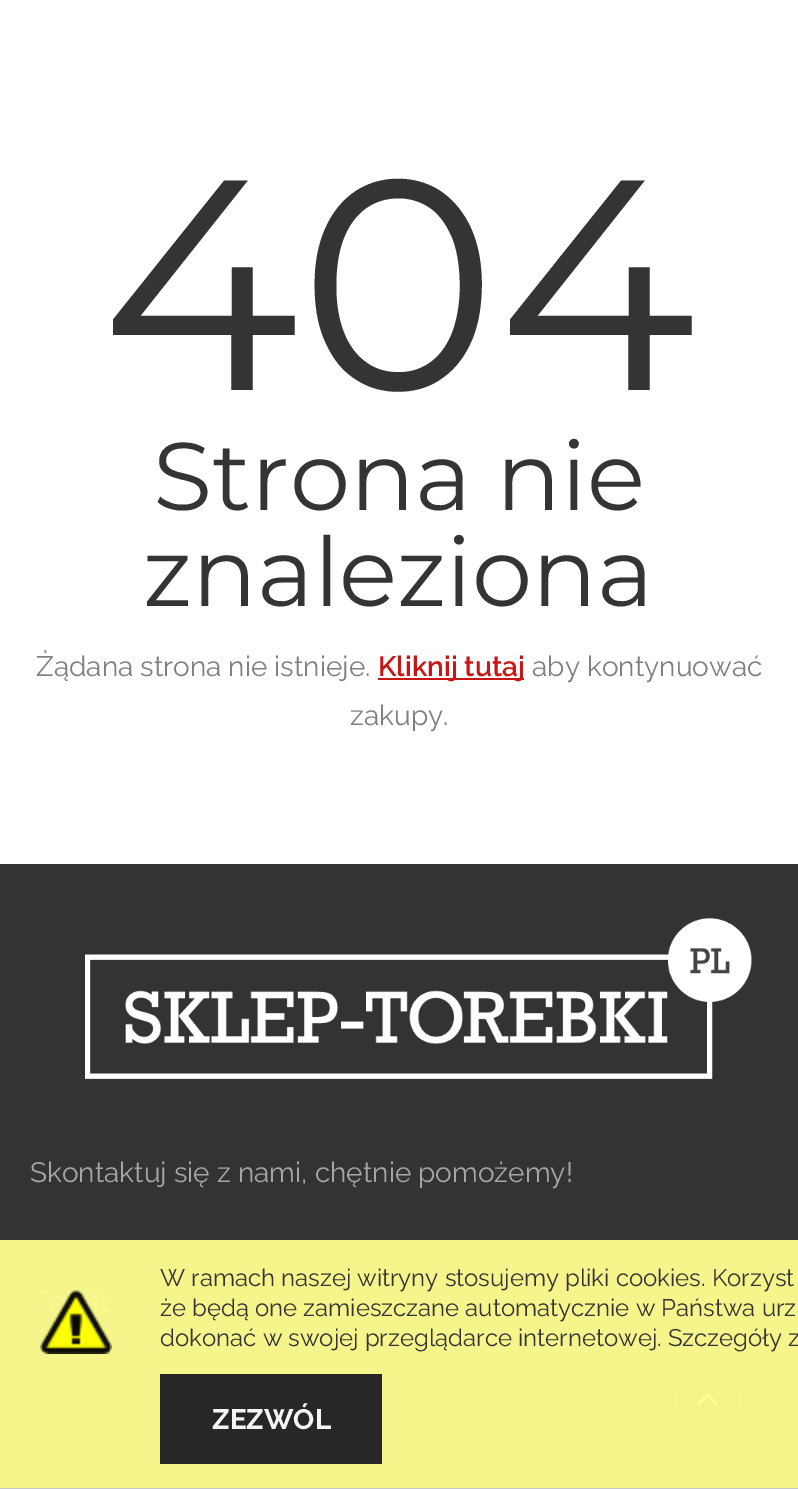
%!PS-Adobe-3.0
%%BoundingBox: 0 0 798 1489
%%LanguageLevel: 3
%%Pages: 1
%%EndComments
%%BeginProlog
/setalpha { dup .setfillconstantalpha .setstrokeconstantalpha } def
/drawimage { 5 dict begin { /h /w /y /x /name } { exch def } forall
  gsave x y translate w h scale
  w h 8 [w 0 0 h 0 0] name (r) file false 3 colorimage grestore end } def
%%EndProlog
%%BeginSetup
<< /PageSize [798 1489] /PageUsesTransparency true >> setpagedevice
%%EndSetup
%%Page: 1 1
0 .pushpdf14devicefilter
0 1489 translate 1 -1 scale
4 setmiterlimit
1 setgray
0 0 798 1489 rectfill
0.792 0.082 0.082 setrgbcolor
378 678 146 2 rectfill
0.2 setgray
0 864 798 625 rectfill
(images/1.raw) 85 918 667 161 drawimage
0.18 setgray
newpath 708 1400 30 0 360 arc closepath fill
(images/3.raw) 697 1393 21 12 drawimage
0.95 setalpha
1 1 0.565 setrgbcolor
0 1240 798 248 rectfill
0.812 setgray
0 1488 798 1 rectfill
1 setalpha
(images/2.raw) 40 1290 72 64 drawimage
0.153 setgray
160 1374 222 90 rectfill
/Montserrat-Thin [300 0 0 -300 0 0] selectfont
0.204 setgray
101 390 moveto (404) show
/Montserrat-Thin [96 0 0 -96 0 0] selectfont
153 510 moveto (Strona nie) show
143 606 moveto (znaleziona) show
/Raleway-Regular [28 0 0 -28 0 0] selectfont
0.502 setgray
36 676 moveto (Żądana strona nie istnieje.) show
/Raleway-SemiBold [28 0 0 -28 0 0] selectfont
0.792 0.082 0.082 setrgbcolor
378 676 moveto (Kliknij tutaj) show
/Raleway-Regular [28 0 0 -28 0 0] selectfont
0.502 setgray
532 676 moveto (aby kontynuować) show
350 725 moveto (zakupy.) show
0.651 setgray
30 1182 moveto (Skontaktuj się z nami, chętnie pomożemy!) show
/Raleway-Regular [24 0 0 -24 0 0] selectfont
0.204 setgray
160 1286 moveto (W ramach naszej witryny stosujemy pliki cookies. Korzyst) show
160 1316 moveto (że będą one zamieszczane automatycznie w Państwa urz) show
160 1346 moveto (dokonać w swojej przeglądarce internetowej. Szczegóły z) show
/Raleway-Bold [28 0 0 -28 0 0] selectfont
0.961 setgray
212 1429 moveto (ZEZWÓL) show
.poppdf14devicefilter showpage
%%EOF
